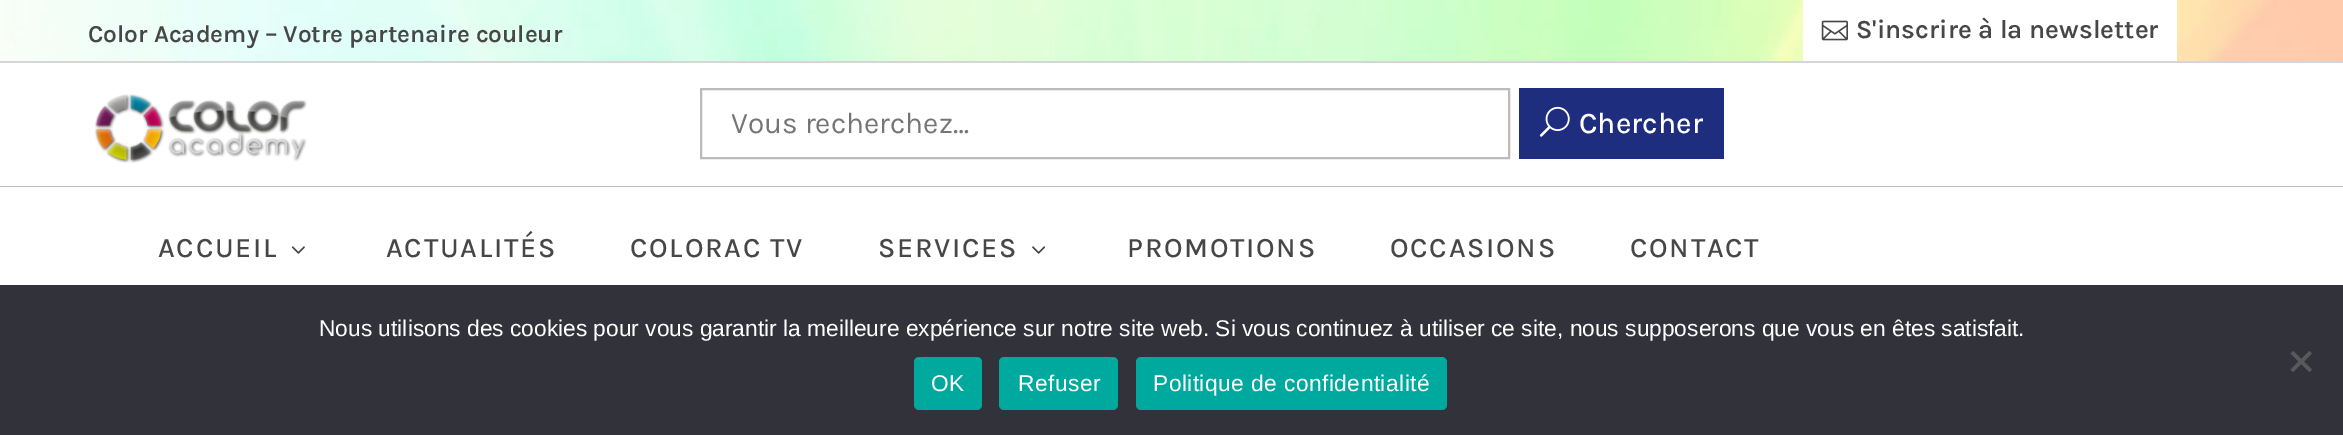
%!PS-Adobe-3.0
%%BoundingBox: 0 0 2343 435
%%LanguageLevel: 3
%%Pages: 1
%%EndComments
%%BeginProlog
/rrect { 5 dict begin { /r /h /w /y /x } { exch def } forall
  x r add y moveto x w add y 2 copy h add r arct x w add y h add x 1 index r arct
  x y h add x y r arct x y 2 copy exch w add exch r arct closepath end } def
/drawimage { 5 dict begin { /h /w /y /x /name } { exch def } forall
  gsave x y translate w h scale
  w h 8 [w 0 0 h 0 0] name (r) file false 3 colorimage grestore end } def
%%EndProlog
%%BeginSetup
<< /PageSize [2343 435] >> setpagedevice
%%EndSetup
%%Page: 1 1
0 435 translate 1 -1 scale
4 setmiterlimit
1 setgray
0 0 2343 435 rectfill
(images/1.raw) 0 0 2343 61 drawimage
0.839 setgray
0 61 2343 2 rectfill
1 setgray
1803 0 374 61 rectfill
(images/2.raw) 1821 20 27 21 drawimage
0.737 setgray
0 186 2343 1 rectfill
(images/3.raw) 94 94 213 69 drawimage
0.733 setgray
2 setlinewidth
701 89 808 69 rectstroke
0.118 0.176 0.49 setrgbcolor
1519 88 205 71 rectfill
(images/4.raw) 1539 106 31 31 drawimage
(images/5.raw) 291 246 14 8 drawimage
(images/6.raw) 1032 246 14 8 drawimage
0.196 0.196 0.227 setrgbcolor
0 285 2343 150 rectfill
0.349 0.349 0.365 setrgbcolor
newpath 2309.5 351 moveto 2312 353.5 lineto 2293 372 lineto 2290.5 369.5 lineto closepath fill
newpath 2290.5 353.5 moveto 2293 351 lineto 2312 369.5 lineto 2309.5 372 lineto closepath fill
0 0.663 0.616 setrgbcolor
914 357 68 53 5 rrect fill
999 357 119 53 5 rrect fill
1136 357 311 53 5 rrect fill
/Karla-SemiBold [24.5 0 0 -24.5 0 0] selectfont
0.278 setgray
88 42 moveto (Color Academy – Votre partenaire couleur) show
/Karla-SemiBold [26.25 0 0 -26.25 0 0] selectfont
1856 38 moveto (S'inscrire à la newsletter) show
gsave
732 105 719 35 rectclip
/Karla-Regular [29.75 0 0 -29.75 0 0] selectfont
0.459 setgray
731 133 moveto (Vous recherchez…) show
grestore
/Karla-Medium [29.75 0 0 -29.75 0 0] selectfont
1 setgray
1579 133 moveto (Chercher) show
/Karla-Medium [28 0 0 -28 0 0] selectfont
0.278 setgray
158 257 moveto 1.75 0 (ACCUEIL) ashow
386 257 moveto 1.75 0 (ACTUALITÉS) ashow
630 257 moveto 1.75 0 (COLORAC TV) ashow
878 257 moveto 1.75 0 (SERVICES) ashow
1127 257 moveto 1.75 0 (PROMOTIONS) ashow
1390 257 moveto 1.75 0 (OCCASIONS) ashow
1630 257 moveto 1.75 0 (CONTACT) ashow
/LiberationSans-Regular [22.75 0 0 -22.75 0 0] selectfont
1 setgray
319 336 moveto (Nous utilisons des cookies pour vous garantir la meilleure expérience sur notre site web. Si vous continuez à utiliser ce site, nous supposerons que vous en êtes satisfait.) show
931 391 moveto 0.45 0 (OK) ashow
1018 391 moveto 0.45 0 (Refuser) ashow
1153 391 moveto 0.45 0 (Politique de confidentialité) ashow
showpage
%%EOF
